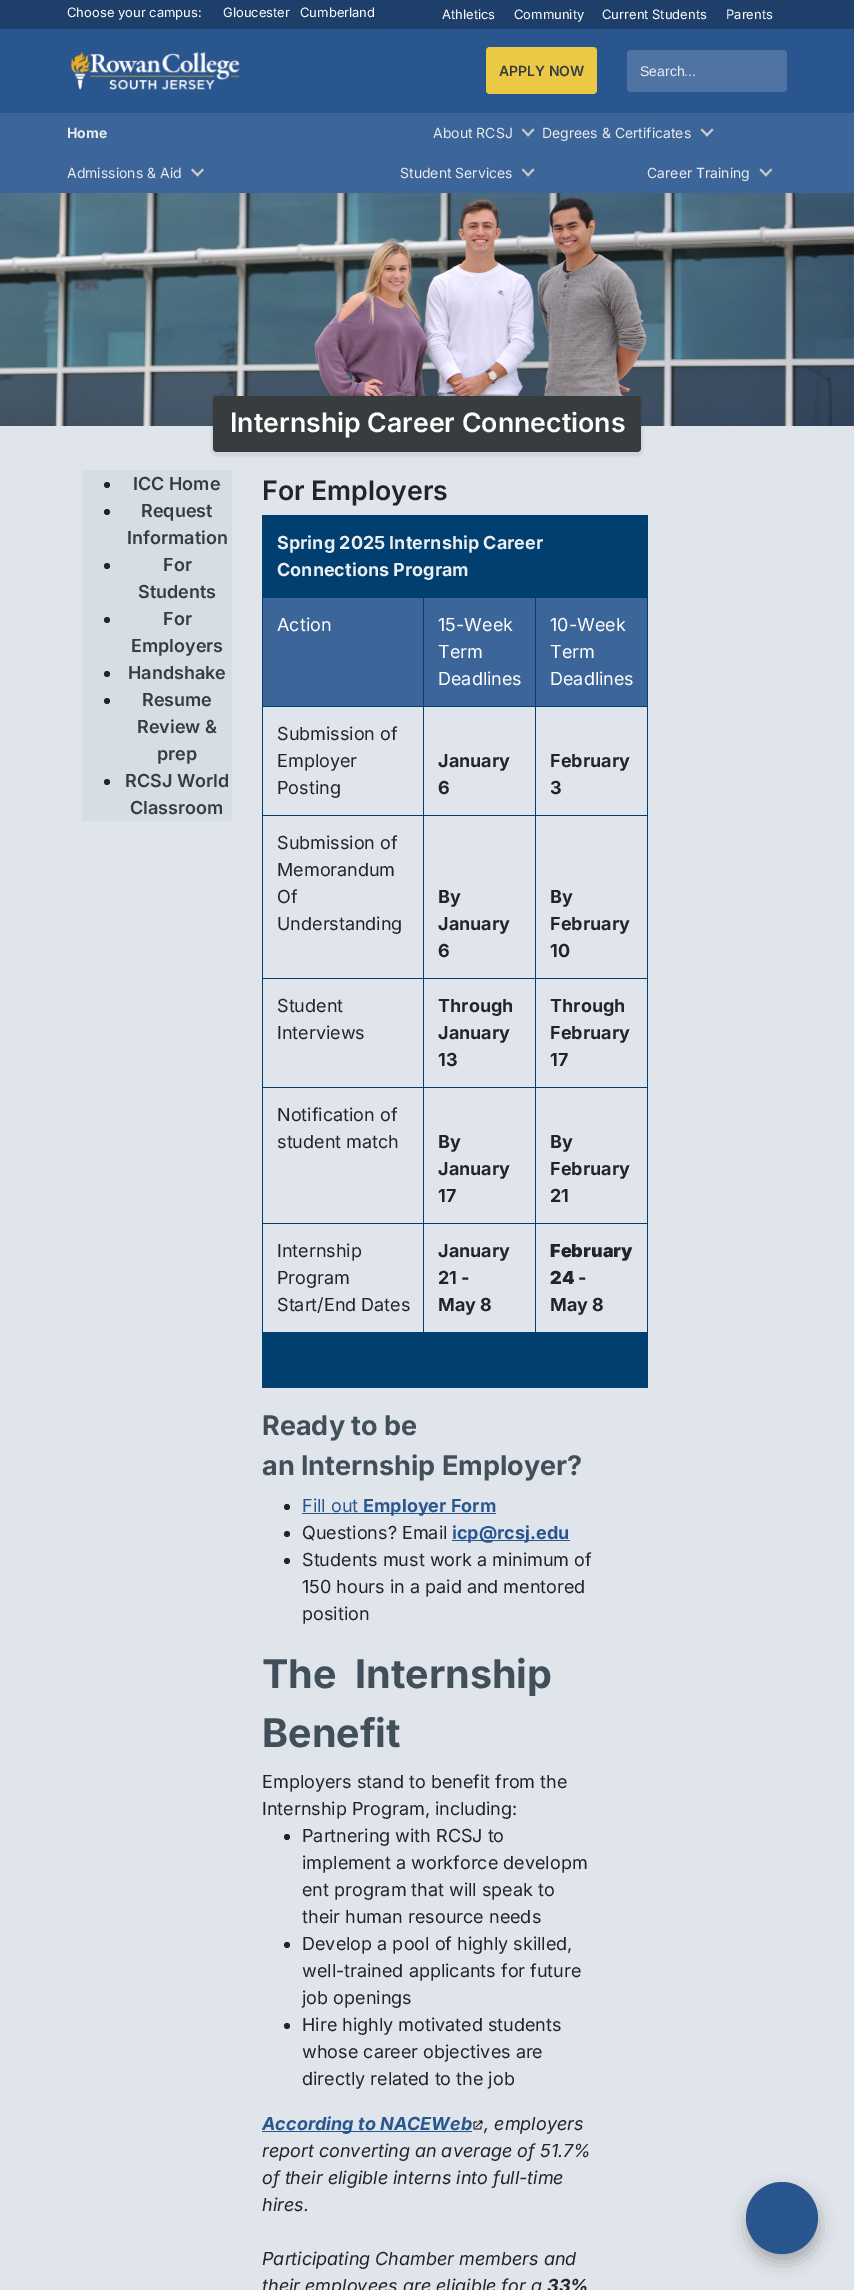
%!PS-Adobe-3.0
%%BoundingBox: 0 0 854 2290
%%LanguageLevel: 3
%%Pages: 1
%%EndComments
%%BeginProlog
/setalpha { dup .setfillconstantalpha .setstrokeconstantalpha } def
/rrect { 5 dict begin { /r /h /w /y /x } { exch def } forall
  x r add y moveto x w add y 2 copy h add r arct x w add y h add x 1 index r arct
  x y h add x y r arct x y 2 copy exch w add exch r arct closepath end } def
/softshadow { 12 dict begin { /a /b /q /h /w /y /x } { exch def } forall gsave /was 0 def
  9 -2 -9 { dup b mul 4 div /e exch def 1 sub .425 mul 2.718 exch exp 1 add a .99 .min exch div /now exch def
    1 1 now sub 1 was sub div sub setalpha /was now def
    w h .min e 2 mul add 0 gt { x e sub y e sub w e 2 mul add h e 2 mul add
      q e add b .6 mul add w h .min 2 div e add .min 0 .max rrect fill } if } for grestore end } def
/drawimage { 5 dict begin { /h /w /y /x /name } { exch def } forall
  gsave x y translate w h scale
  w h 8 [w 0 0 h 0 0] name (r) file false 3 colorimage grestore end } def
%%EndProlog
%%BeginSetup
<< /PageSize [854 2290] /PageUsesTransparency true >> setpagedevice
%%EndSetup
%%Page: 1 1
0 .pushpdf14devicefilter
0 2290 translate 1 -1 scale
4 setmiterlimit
0.161 0.337 0.561 setrgbcolor
0 0 854 2290 rectfill
0.118 0.247 0.412 setrgbcolor
0 0 854 29 rectfill
(images/1.raw) 71 51 169 39 drawimage
0.922 0.788 0.267 setrgbcolor
486 47 111 47 4 rrect fill
0.31 0.455 0.639 setrgbcolor
627 50 160 42 4 rrect fill
0.235 0.396 0.6 setrgbcolor
0 113 854 80 rectfill
0.788 0.796 0.769 setrgbcolor
newpath 523 128.5 moveto 529.5 135 lineto 528 136.5 lineto 522 130 lineto closepath fill
newpath 527 135 moveto 533 128.5 lineto 534.5 130 lineto 528 136.5 lineto closepath fill
newpath 702 128.5 moveto 708.5 135 lineto 707 136.5 lineto 700.5 130 lineto closepath fill
newpath 705.5 135 moveto 712 128.5 lineto 713.5 130 lineto 707 136.5 lineto closepath fill
newpath 192.5 168.5 moveto 199 175 lineto 197.5 176.5 lineto 191 170 lineto closepath fill
newpath 196 175 moveto 202.5 168.5 lineto 204 170 lineto 197.5 176.5 lineto closepath fill
newpath 523 168.5 moveto 529.5 175 lineto 528 176.5 lineto 522 170 lineto closepath fill
newpath 527 175 moveto 533 168.5 lineto 534.5 170 lineto 528 176.5 lineto closepath fill
newpath 761 168.5 moveto 767 175 lineto 766 176.5 lineto 759.5 170 lineto closepath fill
newpath 764.5 175 moveto 771 168.5 lineto 772 170 lineto 766 176.5 lineto closepath fill
(images/2.raw) 0 193 854 233 drawimage
0.878 0.898 0.922 setrgbcolor
0 426 854 1864 rectfill
0.098 setgray
211 396 432 60 6 1 0.08 softshadow
0.216 0.239 0.247 setrgbcolor
213 396 428 56 4 rrect fill
0.843 0.867 0.898 setrgbcolor
82 470 150 351 rectfill
0.129 0.145 0.161 setrgbcolor
newpath 107 485 3 0 360 arc closepath fill
newpath 107 512 3 0 360 arc closepath fill
newpath 107 566 3 0 360 arc closepath fill
newpath 107 620 3 0 360 arc closepath fill
newpath 107 674 3 0 360 arc closepath fill
newpath 107 701 3 0 360 arc closepath fill
newpath 107 782 3 0 360 arc closepath fill
0 0.247 0.435 setrgbcolor
262 515 386 1 rectfill
647 515 1 873 rectfill
262 1387 386 1 rectfill
262 515 1 873 rectfill
263 516 384 81 rectfill
0.235 0.396 0.6 setrgbcolor
263 598 384 108 rectfill
0 0.247 0.435 setrgbcolor
535 597 113 1 rectfill
535 706 113 1 rectfill
535 815 113 1 rectfill
535 978 113 1 rectfill
535 1087 113 1 rectfill
535 1223 113 1 rectfill
263 1332 384 55 rectfill
535 1223 1 110 rectfill
423 1223 113 1 rectfill
535 1087 1 137 rectfill
423 1087 113 1 rectfill
535 978 1 110 rectfill
423 978 113 1 rectfill
535 815 1 164 rectfill
423 815 113 1 rectfill
535 706 1 110 rectfill
423 706 113 1 rectfill
535 597 1 110 rectfill
423 597 113 1 rectfill
423 1223 1 110 rectfill
262 1223 162 1 rectfill
423 1087 1 137 rectfill
262 1087 162 1 rectfill
423 978 1 110 rectfill
262 978 162 1 rectfill
423 815 1 164 rectfill
262 815 162 1 rectfill
423 706 1 110 rectfill
262 706 162 1 rectfill
423 597 1 110 rectfill
262 597 162 1 rectfill
0.129 0.145 0.161 setrgbcolor
newpath 287 1507 3 0 360 arc closepath fill
0.161 0.337 0.561 setrgbcolor
302 1513 194 1 rectfill
0.129 0.145 0.161 setrgbcolor
newpath 287 1534 3 0 360 arc closepath fill
0.161 0.337 0.561 setrgbcolor
452 1540 118 1 rectfill
0.129 0.145 0.161 setrgbcolor
newpath 287 1561 3 0 360 arc closepath fill
newpath 287 1837 3 0 360 arc closepath fill
newpath 287 1945 3 0 360 arc closepath fill
newpath 287 2026 3 0 360 arc closepath fill
0.161 0.337 0.561 setrgbcolor
262 2131 210 1 rectfill
(images/3.raw) 473 2120 10 10 drawimage
0 setgray
747 2190 72 72 36 8 0.25 softshadow
0.161 0.337 0.561 setrgbcolor
newpath 782 2218 36 0 360 arc closepath fill
/Inter-Regular [13 0 0 -13 0 0] selectfont
1 setgray
67 17 moveto (Choose your campus:) show
223 17 moveto (Gloucester) show
300 17 moveto (Cumberland) show
442 19 moveto (Athletics) show
514 19 moveto (Community) show
602 19 moveto (Current Students) show
726 19 moveto (Parents) show
/Inter-SemiBold [14 0 0 -14 0 0] selectfont
0.216 0.239 0.247 setrgbcolor
499 76 moveto (APPLY NOW) show
/LiberationSans-Regular [14 0 0 -14 0 0] selectfont
0.922 0.937 0.957 setrgbcolor
640 76 moveto (Search...) show
/Inter-Bold [14 0 0 -14 0 0] selectfont
0.914 0.918 0.925 setrgbcolor
67 138 moveto (Home) show
/Inter-Regular [14 0 0 -14 0 0] selectfont
433 138 moveto (About RCSJ) show
542 138 moveto (Degrees & Certificates) show
67 178 moveto (Admissions & Aid) show
400 178 moveto (Student Services) show
647 178 moveto (Career Training) show
/Inter-SemiBold [26.7 0 0 -26.7 0 0] selectfont
1 setgray
230 432 moveto (Internship Career Connections) show
/Inter-SemiBold [18 0 0 -18 0 0] selectfont
0.216 0.239 0.247 setrgbcolor
133 490 moveto (ICC Home) show
141 517 moveto (Request) show
127 544 moveto (Information) show
163 571 moveto (For) show
138 598 moveto (Students) show
163 625 moveto (For) show
131 652 moveto (Employers) show
128 679 moveto (Handshake) show
142 706 moveto (Resume) show
137 733 moveto (Review &) show
157 760 moveto (prep) show
125 787 moveto (RCSJ World) show
130 814 moveto (Classroom) show
/Inter-SemiBold [26.7 0 0 -26.7 0 0] selectfont
0.129 0.145 0.161 setrgbcolor
262 500 moveto (For Employers) show
/Inter-Bold [18 0 0 -18 0 0] selectfont
0.922 0.937 0.957 setrgbcolor
277 549 moveto (Spring 2025 Internship Career) show
277 576 moveto (Connections Program) show
/Inter-Regular [18 0 0 -18 0 0] selectfont
1 setgray
277 631 moveto (Action) show
438 631 moveto (15-Week) show
438 658 moveto (Term) show
438 685 moveto (Deadlines) show
550 631 moveto (10-Week) show
550 658 moveto (Term) show
550 685 moveto (Deadlines) show
0.129 0.145 0.161 setrgbcolor
277 740 moveto (Submission of) show
277 767 moveto (Employer) show
277 794 moveto (Posting) show
/Inter-Bold [18 0 0 -18 0 0] selectfont
438 767 moveto (January) show
438 794 moveto (6) show
550 767 moveto (February) show
550 794 moveto (3) show
/Inter-Regular [18 0 0 -18 0 0] selectfont
277 849 moveto (Submission of) show
277 876 moveto (Memorandum) show
277 903 moveto (Of) show
277 930 moveto (Understanding) show
/Inter-Bold [18 0 0 -18 0 0] selectfont
438 903 moveto (By) show
438 930 moveto (January) show
438 957 moveto (6) show
550 903 moveto (By) show
550 930 moveto (February) show
550 957 moveto (10) show
/Inter-Regular [18 0 0 -18 0 0] selectfont
277 1012 moveto (Student) show
277 1039 moveto (Interviews) show
/Inter-Bold [18 0 0 -18 0 0] selectfont
438 1012 moveto (Through) show
438 1039 moveto (January) show
438 1066 moveto (13) show
550 1012 moveto (Through) show
550 1039 moveto (February) show
550 1066 moveto (17) show
/Inter-Regular [18 0 0 -18 0 0] selectfont
277 1121 moveto (Notification of) show
277 1148 moveto (student match) show
/Inter-Bold [18 0 0 -18 0 0] selectfont
438 1148 moveto (By) show
438 1175 moveto (January) show
438 1202 moveto (17) show
550 1148 moveto (By) show
550 1175 moveto (February) show
550 1202 moveto (21) show
/Inter-Regular [18 0 0 -18 0 0] selectfont
277 1257 moveto (Internship) show
277 1284 moveto (Program) show
277 1311 moveto (Start/End Dates) show
/Inter-Bold [18 0 0 -18 0 0] selectfont
438 1257 moveto (January) show
438 1284 moveto (21 -) show
438 1311 moveto (May 8) show
/Inter-Black [18 0 0 -18 0 0] selectfont
550 1257 moveto (February) show
550 1284 moveto (24) show
/Inter-Bold [18 0 0 -18 0 0] selectfont
578 1284 moveto (-) show
550 1311 moveto (May 8) show
/Inter-Bold [27 0 0 -27 0 0] selectfont
0.255 0.31 0.353 setrgbcolor
262 1435 moveto (Ready to be) show
262 1475 moveto (an Internship Employer?) show
/Inter-Regular [18 0 0 -18 0 0] selectfont
0.161 0.337 0.561 setrgbcolor
302 1512 moveto (Fill out) show
/Inter-Bold [18 0 0 -18 0 0] selectfont
363 1512 moveto (Employer Form) show
/Inter-Regular [18 0 0 -18 0 0] selectfont
0.129 0.145 0.161 setrgbcolor
302 1539 moveto (Questions? Email) show
/Inter-Bold [18 0 0 -18 0 0] selectfont
0.161 0.337 0.561 setrgbcolor
452 1539 moveto (icp@rcsj.edu) show
/Inter-Regular [18 0 0 -18 0 0] selectfont
0.129 0.145 0.161 setrgbcolor
302 1566 moveto (Students must work a minimum of) show
302 1593 moveto (150 hours in a paid and mentored) show
302 1620 moveto (position) show
/Inter-Bold [39.5 0 0 -39.5 0 0] selectfont
0.255 0.31 0.353 setrgbcolor
262 1688 moveto (The  Internship) show
262 1747 moveto (Benefit) show
/Inter-Regular [18 0 0 -18 0 0] selectfont
0.129 0.145 0.161 setrgbcolor
262 1788 moveto (Employers stand to benefit from the) show
262 1815 moveto (Internship Program, including:) show
302 1842 moveto (Partnering with RCSJ to) show
302 1869 moveto (implement a workforce developm) show
302 1896 moveto (ent program that will speak to) show
302 1923 moveto (their human resource needs) show
302 1950 moveto (Develop a pool of highly skilled,) show
302 1977 moveto (well-trained applicants for future) show
302 2004 moveto (job openings) show
302 2031 moveto (Hire highly motivated students) show
302 2058 moveto (whose career objectives are) show
302 2085 moveto (directly related to the job) show
/Inter-BoldItalic [18 0 0 -18 0 0] selectfont
0.161 0.337 0.561 setrgbcolor
262 2130 moveto (According to NACEWeb) show
/Inter-Italic [18 0 0 -18 0 0] selectfont
0.129 0.145 0.161 setrgbcolor
484 2130 moveto (, employers) show
262 2157 moveto (report converting an average of 51.7%) show
262 2184 moveto (of their eligible interns into full-time) show
262 2211 moveto (hires.) show
262 2265 moveto (Participating Chamber members and) show
262 2292 moveto (their employees are eligible for a) show
/Inter-BoldItalic [18 0 0 -18 0 0] selectfont
547 2292 moveto (33%) show
.poppdf14devicefilter showpage
%%EOF
